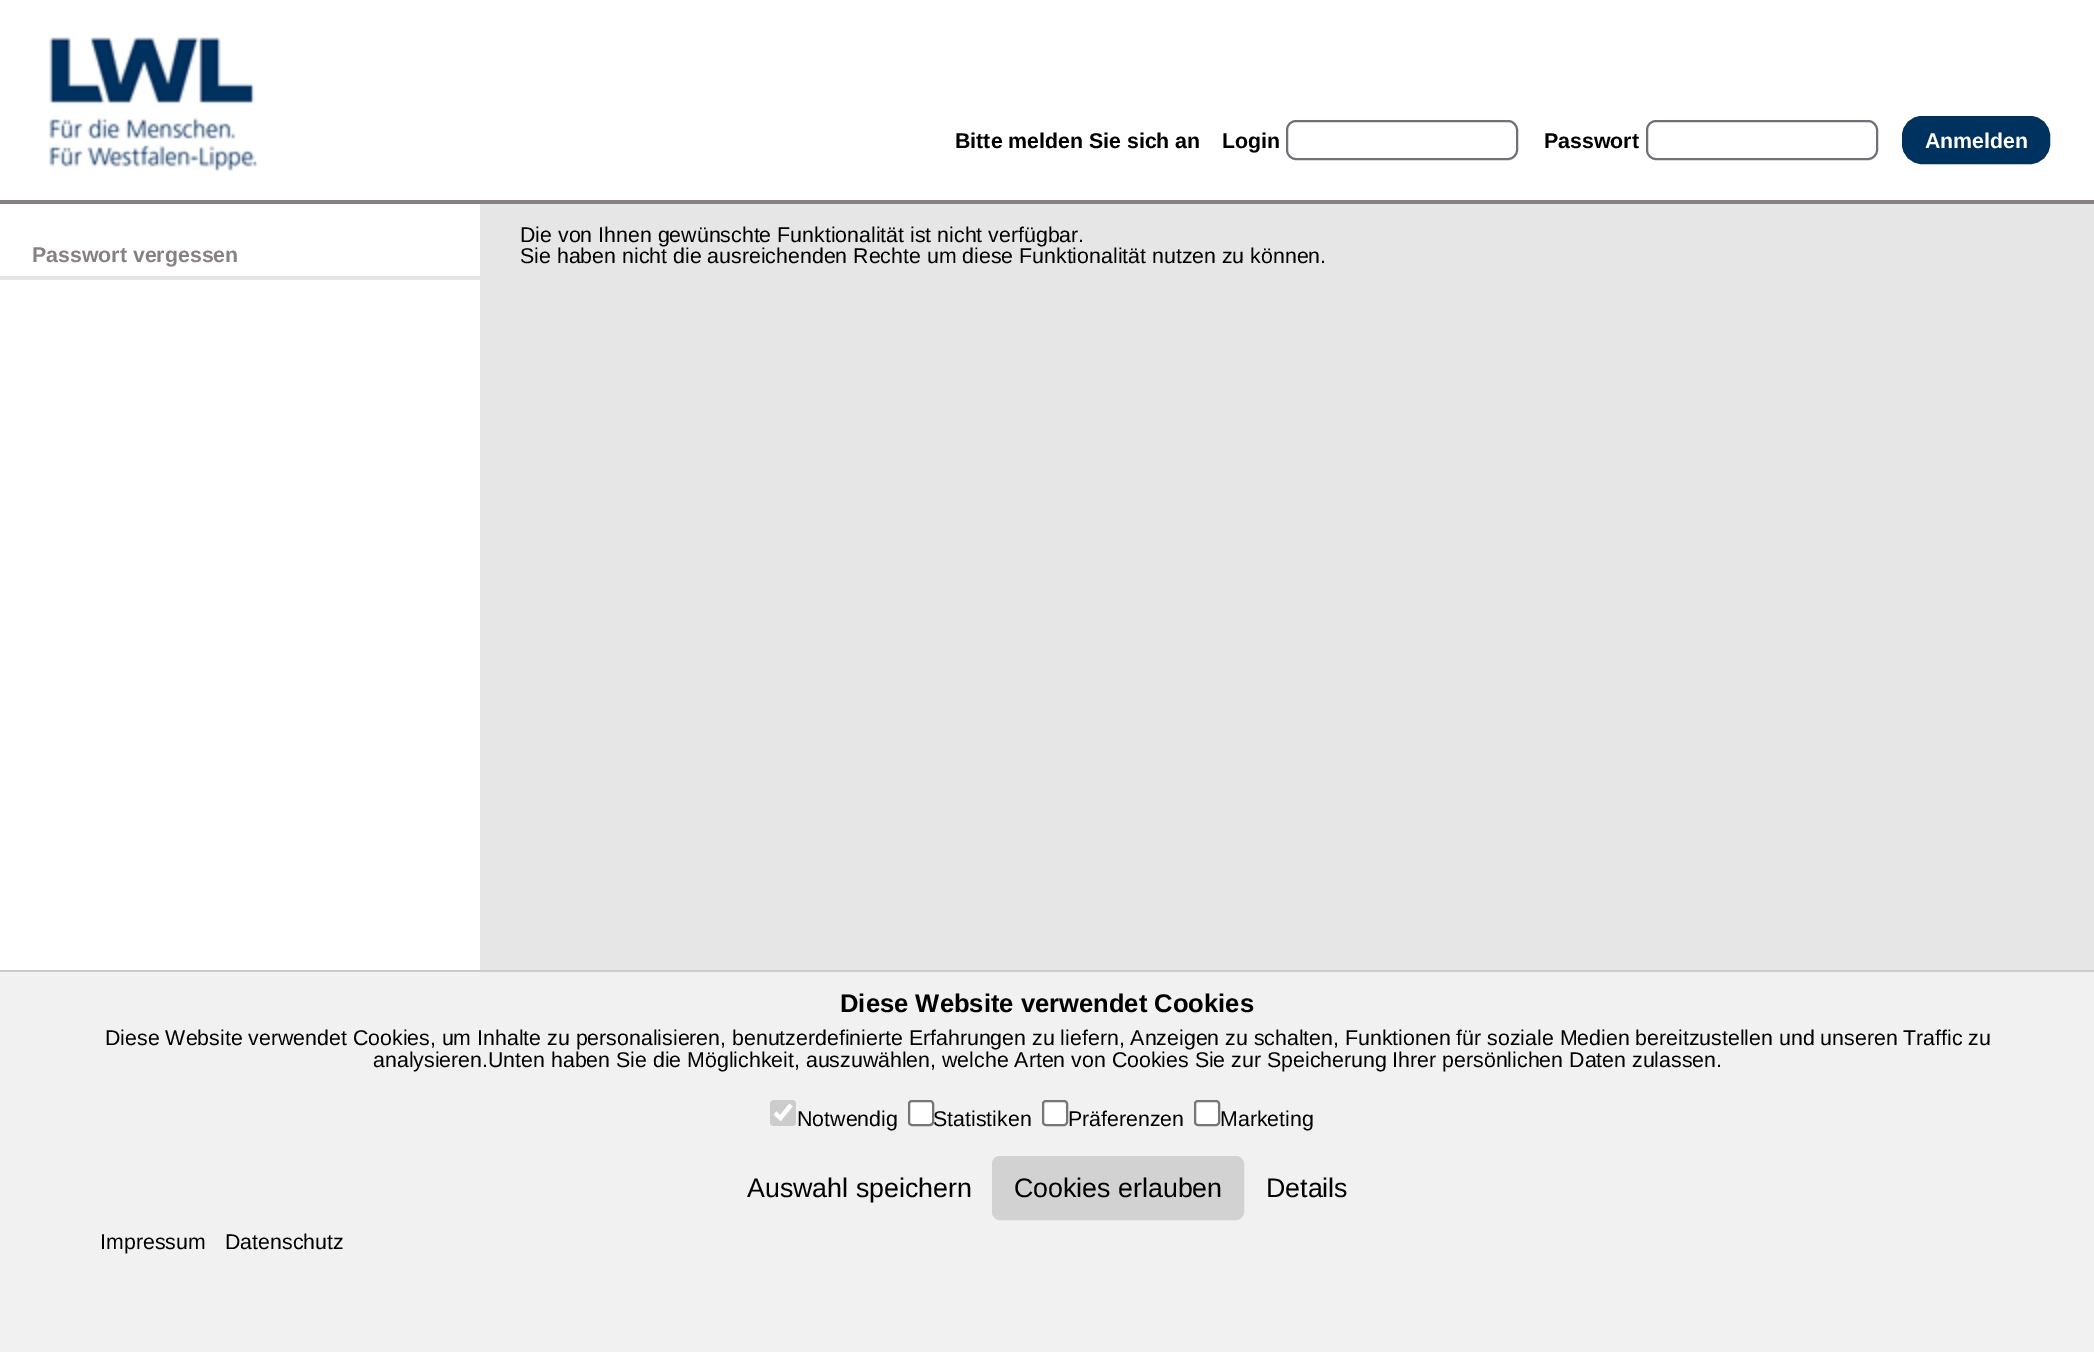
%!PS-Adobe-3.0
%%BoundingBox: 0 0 2094 1352
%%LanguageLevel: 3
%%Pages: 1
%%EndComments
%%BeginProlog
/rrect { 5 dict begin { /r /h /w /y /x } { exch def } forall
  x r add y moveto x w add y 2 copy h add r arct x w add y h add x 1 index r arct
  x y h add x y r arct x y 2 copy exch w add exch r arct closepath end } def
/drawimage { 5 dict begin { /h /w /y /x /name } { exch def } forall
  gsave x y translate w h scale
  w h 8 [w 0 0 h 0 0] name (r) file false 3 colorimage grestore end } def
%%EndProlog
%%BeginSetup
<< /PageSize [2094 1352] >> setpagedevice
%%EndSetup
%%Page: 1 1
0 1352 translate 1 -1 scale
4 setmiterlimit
0.902 setgray
0 0 2094 1352 rectfill
1 setgray
0 0 2094 200 rectfill
0.529 0.506 0.522 setrgbcolor
0 200 2094 4 rectfill
(images/1.raw) 49 37 209 134 drawimage
0.431 0.447 0.471 setrgbcolor
2 setlinewidth
1287 121 230 38 9 rrect stroke
1647 121 230 38 9 rrect stroke
0 0.196 0.373 setrgbcolor
1903 117 146 46 19 rrect gsave fill grestore
stroke
1 setgray
0 204 480 766 rectfill
0.894 0.898 0.906 setrgbcolor
0 276 480 4 rectfill
0.945 setgray
0 972 2094 380 rectfill
0.8 setgray
0 970 2094 2 rectfill
770 1100 26 26 4 rrect fill
1 setgray
4.2 setlinewidth
newpath 775 1113 moveto 780.5 1118 lineto 791 1105 lineto stroke
909 1101 24 24 3 rrect gsave fill grestore
0.463 setgray
2 setlinewidth
stroke
1 setgray
1043 1101 24 24 3 rrect gsave fill grestore
0.463 setgray
stroke
1 setgray
1195 1101 24 24 3 rrect gsave fill grestore
0.463 setgray
stroke
0.824 setgray
993 1157 250 62 7 rrect gsave fill grestore
stroke
/LiberationSans-Bold [21.33 0 0 -21.33 0 0] selectfont
0 setgray
955 148 moveto (Bitte melden Sie sich an) show
1222 148 moveto (Login) show
1544 148 moveto (Passwort) show
1 setgray
1925 148 moveto (Anmelden) show
0.529 0.506 0.522 setrgbcolor
32 262 moveto (Passwort vergessen) show
/LiberationSans-Regular [21.33 0 0 -21.33 0 0] selectfont
0 setgray
520 242 moveto (Die von Ihnen gewünschte Funktionalität ist nicht verfügbar.) show
520 263 moveto (Sie haben nicht die ausreichenden Rechte um diese Funktionalität nutzen zu können.) show
/LiberationSans-Bold [25.6 0 0 -25.6 0 0] selectfont
840 1012 moveto (Diese Website verwendet Cookies) show
/LiberationSans-Regular [21.33 0 0 -21.33 0 0] selectfont
105 1045 moveto (Diese Website verwendet Cookies, um Inhalte zu personalisieren, benutzerdefinierte Erfahrungen zu liefern, Anzeigen zu schalten, Funktionen für soziale Medien bereitzustellen und unseren Traffic zu) show
373 1067 moveto (analysieren.Unten haben Sie die Möglichkeit, auszuwählen, welche Arten von Cookies Sie zur Speicherung Ihrer persönlichen Daten zulassen.) show
797 1126 moveto (Notwendig) show
933 1126 moveto (Statistiken) show
1068 1126 moveto (Präferenzen) show
1220 1126 moveto (Marketing) show
/LiberationSans-Regular [26.75 0 0 -26.75 0 0] selectfont
747 1197 moveto (Auswahl speichern) show
1014 1197 moveto (Cookies erlauben) show
1266 1197 moveto (Details) show
/LiberationSans-Regular [21.33 0 0 -21.33 0 0] selectfont
100 1249 moveto (Impressum) show
225 1249 moveto (Datenschutz) show
showpage
%%EOF
